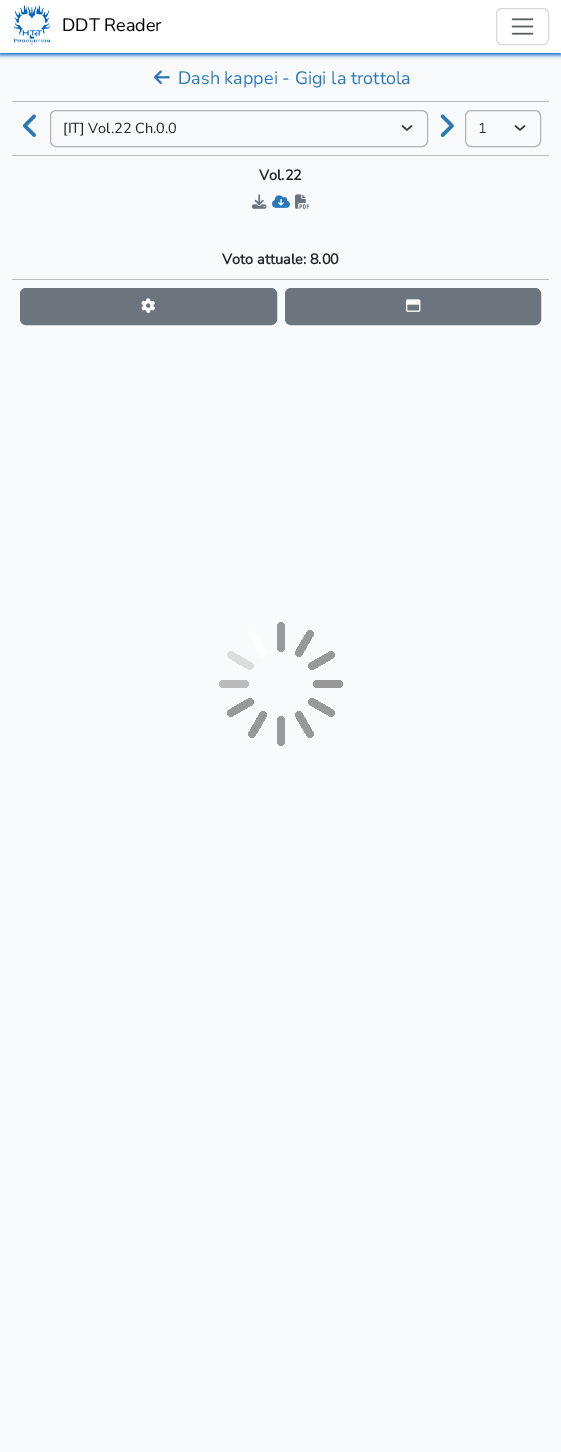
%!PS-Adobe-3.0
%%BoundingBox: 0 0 561 1452
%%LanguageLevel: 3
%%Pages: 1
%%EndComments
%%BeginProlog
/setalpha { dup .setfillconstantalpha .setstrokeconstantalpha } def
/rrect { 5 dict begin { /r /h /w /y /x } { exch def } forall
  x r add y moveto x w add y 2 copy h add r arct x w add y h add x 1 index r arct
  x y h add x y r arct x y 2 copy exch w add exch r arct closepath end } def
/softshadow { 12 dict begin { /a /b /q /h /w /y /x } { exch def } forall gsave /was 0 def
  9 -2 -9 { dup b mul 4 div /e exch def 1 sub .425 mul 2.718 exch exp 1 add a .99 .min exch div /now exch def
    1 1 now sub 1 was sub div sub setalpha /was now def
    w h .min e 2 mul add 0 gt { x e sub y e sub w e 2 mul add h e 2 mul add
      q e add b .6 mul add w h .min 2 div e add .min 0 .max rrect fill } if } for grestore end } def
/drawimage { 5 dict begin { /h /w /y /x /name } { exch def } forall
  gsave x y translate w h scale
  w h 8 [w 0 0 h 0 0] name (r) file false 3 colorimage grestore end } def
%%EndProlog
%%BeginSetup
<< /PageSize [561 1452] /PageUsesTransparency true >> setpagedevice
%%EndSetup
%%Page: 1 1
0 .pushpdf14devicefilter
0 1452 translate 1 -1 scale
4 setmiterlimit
0.973 0.98 0.988 setrgbcolor
0 0 561 1452 rectfill
0 0.388 0.776 setrgbcolor
0 2 561 53 0 2 1 softshadow
1 setgray
0 0 561 53 rectfill
(images/1.raw) 13 5 38 40 drawimage
0.851 setgray
496.5 8.5 52 36 5.5 rrect stroke
(images/2.raw) 511 18 23 17 drawimage
(images/3.raw) 154 70 16 14 drawimage
0.737 0.741 0.745 setrgbcolor
12 101 537 1 rectfill
(images/4.raw) 22 114 14 23 drawimage
0.204 0.227 0.251 setrgbcolor
1.5 setlinewidth
1 setlinecap
1 setlinejoin
newpath 402.5 126 moveto 407 130 lineto 411.5 126 lineto stroke
0.678 0.71 0.741 setrgbcolor
1 setlinewidth
0 setlinecap
0 setlinejoin
50.5 110.5 377 36 5.5 rrect stroke
(images/5.raw) 440 114 14 23 drawimage
0.204 0.227 0.251 setrgbcolor
1.5 setlinewidth
1 setlinecap
1 setlinejoin
newpath 515.5 126 moveto 520 130 lineto 524.5 126 lineto stroke
0.678 0.71 0.741 setrgbcolor
1 setlinewidth
0 setlinecap
0 setlinejoin
465.5 110.5 75 36 5.5 rrect stroke
0.737 0.741 0.745 setrgbcolor
12 155 537 1 rectfill
(images/6.raw) 252 194 15 15 drawimage
(images/7.raw) 272 195 18 13 drawimage
(images/8.raw) 295 194 14 15 drawimage
12 279 537 1 rectfill
0.424 0.459 0.49 setrgbcolor
20.5 288.5 256 36 5.5 rrect gsave fill grestore
stroke
(images/9.raw) 141 298 14 15 drawimage
285.5 288.5 255 36 5.5 rrect gsave fill grestore
stroke
(images/10.raw) 406 299 15 13 drawimage
(images/11.raw) 219 622 124 124 drawimage
/Nunito-ExtraLight [18 0 0 -18 0 0] selectfont
0 setgray
62 31 moveto (DDT Reader) show
0.169 0.471 0.722 setrgbcolor
178 84 moveto (Dash kappei - Gigi la trottola) show
/Nunito-ExtraLight [14.5 0 0 -14.5 0 0] selectfont
0.129 0.145 0.161 setrgbcolor
63 133 moveto ([IT] Vol.22 Ch.0.0) show
478 133 moveto (1) show
/Nunito-Bold [14.5 0 0 -14.5 0 0] selectfont
259 180 moveto (Vol.22) show
222 264 moveto (Voto attuale: 8.00) show
.poppdf14devicefilter showpage
%%EOF
